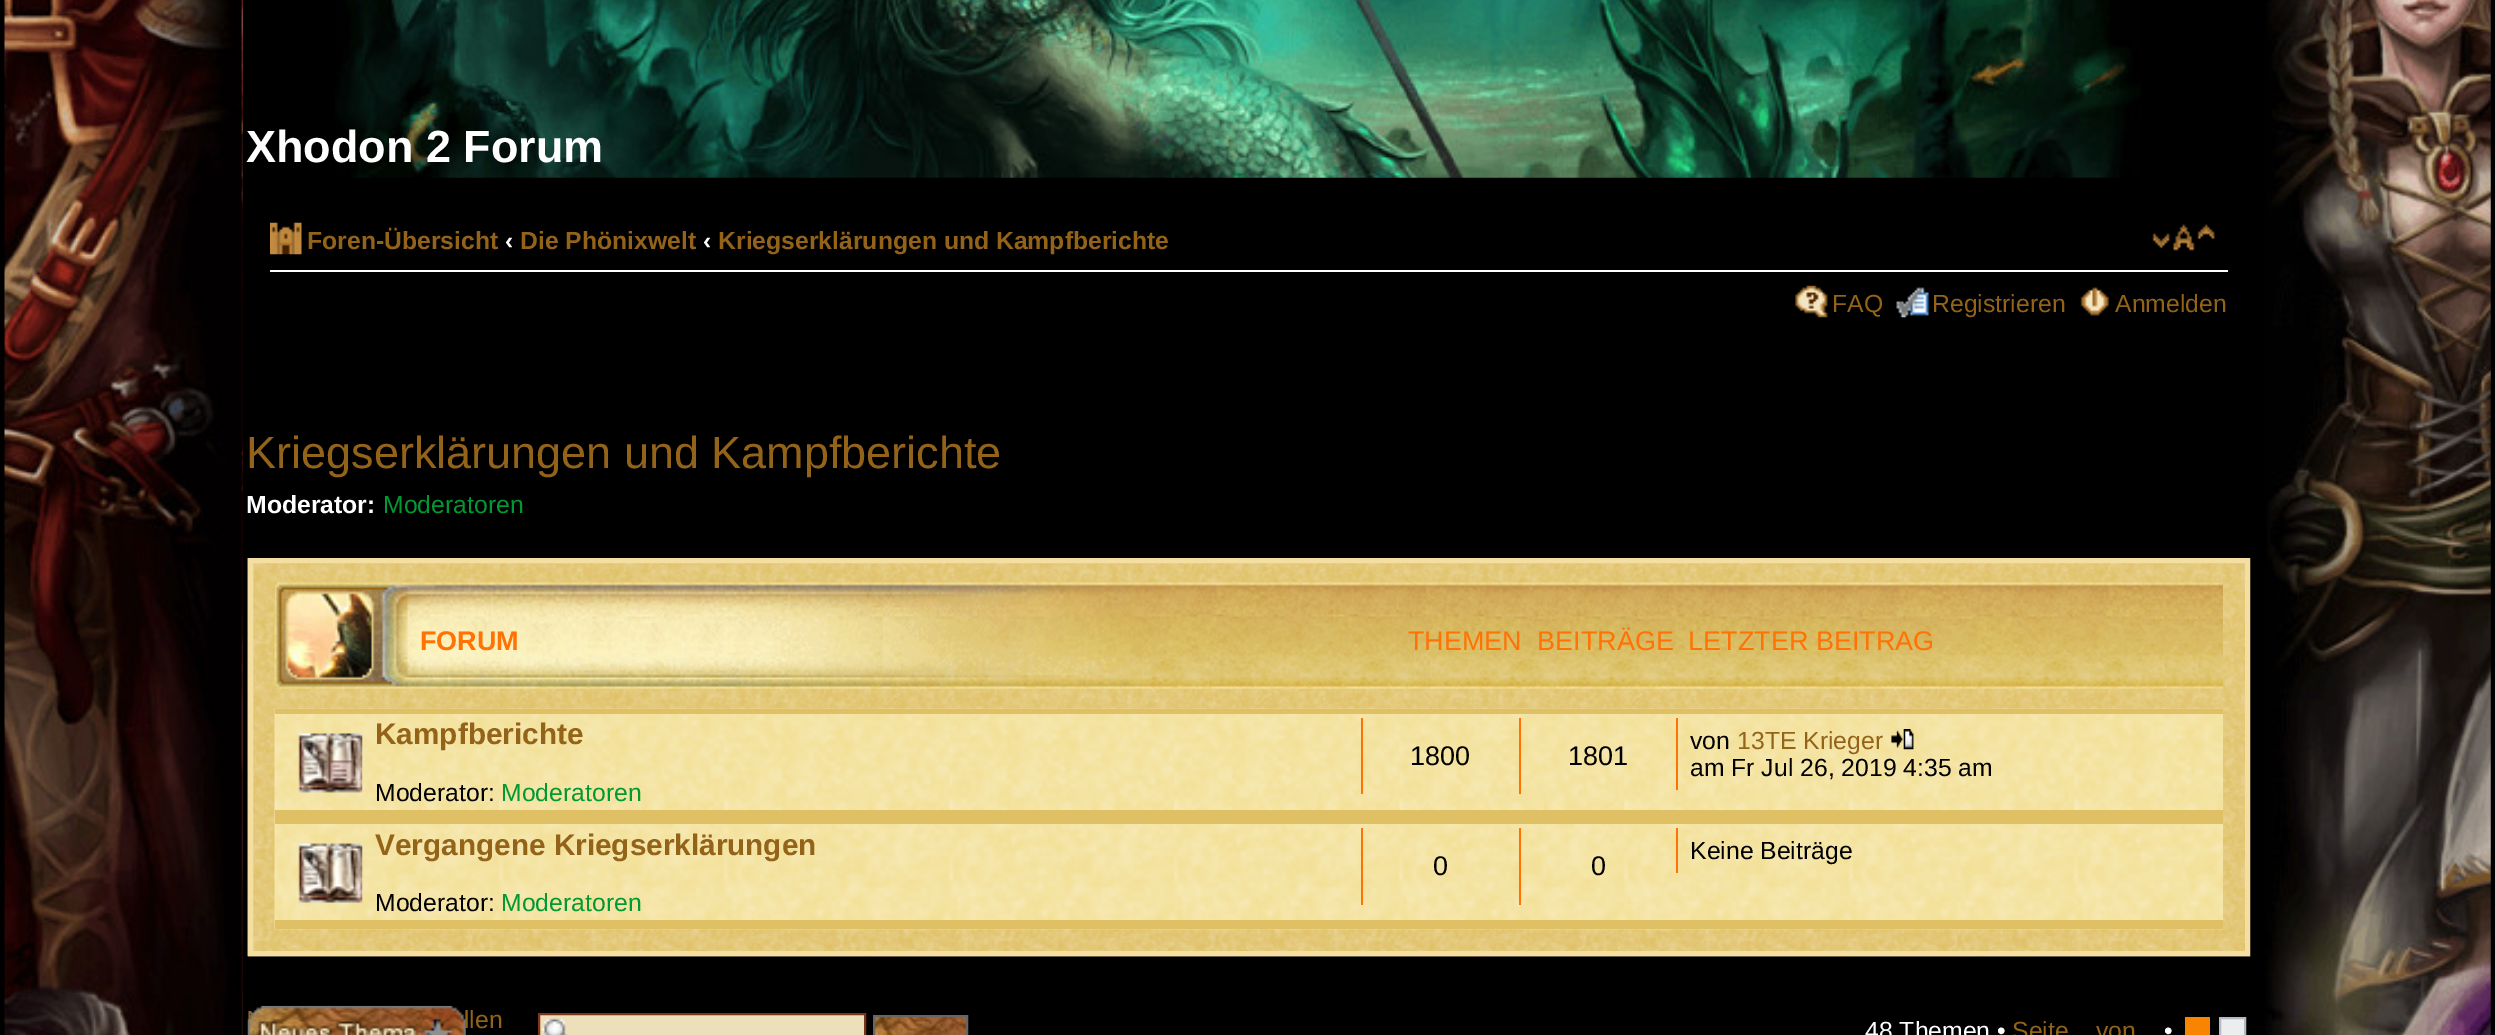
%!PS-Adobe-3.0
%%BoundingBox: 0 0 2495 1035
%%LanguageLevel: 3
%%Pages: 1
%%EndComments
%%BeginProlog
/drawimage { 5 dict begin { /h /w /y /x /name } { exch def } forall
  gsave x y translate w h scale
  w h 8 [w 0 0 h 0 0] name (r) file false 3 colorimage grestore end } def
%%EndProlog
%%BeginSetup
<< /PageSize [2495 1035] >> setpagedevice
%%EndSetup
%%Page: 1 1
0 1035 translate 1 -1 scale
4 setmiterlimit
0 setgray
0 0 2495 1035 rectfill
(images/1.raw) 4 0 239 1035 drawimage
(images/2.raw) 335 0 1807 178 drawimage
1 setgray
270 270 1958 2 rectfill
(images/3.raw) 270 222 32 33 drawimage
(images/4.raw) 2152 224 63 27 drawimage
(images/5.raw) 1795 285 33 33 drawimage
(images/6.raw) 1896 287 33 31 drawimage
(images/7.raw) 2080 287 29 29 drawimage
(images/8.raw) 247 558 2003 399 drawimage
0.957 0.871 0.635 setrgbcolor
5 setlinewidth
250.5 560.5 1997 393 rectstroke
(images/9.raw) 274 582 1949 107 drawimage
(images/10.raw) 274 582 1869 107 drawimage
(images/11.raw) 274 708 1949 222 drawimage
0.875 0.753 0.396 setrgbcolor
275 709 1948 5 rectfill
275 810 1948 14 rectfill
(images/12.raw) 298 733 65 60 drawimage
1 0.447 0.012 setrgbcolor
1361 718 2 76 rectfill
1519 718 2 76 rectfill
1676 718 2 72 rectfill
(images/13.raw) 1891 729 23 21 drawimage
0.875 0.753 0.396 setrgbcolor
275 920 1948 9 rectfill
(images/14.raw) 298 843 65 60 drawimage
1 0.447 0.012 setrgbcolor
1361 828 2 77 rectfill
1519 828 2 77 rectfill
1676 828 2 45 rectfill
0.929 0.875 0.729 setrgbcolor
540 1015 324 20 rectfill
(images/16.raw) 541 1018 27 17 drawimage
0.49 0.208 0.098 setrgbcolor
2 setlinewidth
539 1014 326 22 rectstroke
(images/17.raw) 875 1017 91 18 drawimage
0.4 setgray
874 1016 93 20 rectstroke
0.976 0.518 0.004 setrgbcolor
2185 1017 25 18 rectfill
0.925 0.929 0.933 setrgbcolor
newpath 2220 1018 moveto 2245 1018 lineto 2245 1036 lineto 2220 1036 lineto closepath gsave fill grestore
0.706 0.729 0.753 setrgbcolor
stroke
(images/18.raw) 2265 0 226 1035 drawimage
/LiberationSans-Bold [45 0 0 -45 0 0] selectfont
1 setgray
246 162 moveto (Xhodon 2 Forum) show
/LiberationSans-Bold [24.75 0 0 -24.75 0 0] selectfont
0.58 0.388 0.102 setrgbcolor
307 249 moveto (Foren-Übersicht) show
1 setgray
505 249 moveto (‹) show
0.58 0.388 0.102 setrgbcolor
520 249 moveto (Die Phönixwelt) show
1 setgray
703 249 moveto (‹) show
0.58 0.388 0.102 setrgbcolor
718 249 moveto (Kriegserklärungen und Kampfberichte) show
/LiberationSans-Regular [24.75 0 0 -24.75 0 0] selectfont
1832 312 moveto (FAQ) show
1932 312 moveto (Registrieren) show
2115 312 moveto (Anmelden) show
/LiberationSans-Regular [45 0 0 -45 0 0] selectfont
246 468 moveto (Kriegserklärungen und Kampfberichte) show
/LiberationSans-Bold [24.75 0 0 -24.75 0 0] selectfont
1 setgray
246 513 moveto (Moderator:) show
/LiberationSans-Regular [24.75 0 0 -24.75 0 0] selectfont
0 0.6 0.2 setrgbcolor
383 513 moveto (Moderatoren) show
/LiberationSans-Bold [27 0 0 -27 0 0] selectfont
1 0.447 0.012 setrgbcolor
420 650 moveto (FORUM) show
/LiberationSans-Regular [27 0 0 -27 0 0] selectfont
1408 650 moveto (THEMEN) show
1537 650 moveto (BEITRÄGE) show
1688 650 moveto (LETZTER BEITRAG) show
/LiberationSans-Bold [29.75 0 0 -29.75 0 0] selectfont
0.58 0.388 0.102 setrgbcolor
375 744 moveto (Kampfberichte) show
/LiberationSans-Regular [24.75 0 0 -24.75 0 0] selectfont
0 setgray
375 801 moveto (Moderator:) show
0 0.6 0.2 setrgbcolor
501 801 moveto (Moderatoren) show
/LiberationSans-Regular [27 0 0 -27 0 0] selectfont
0 setgray
1410 765 moveto (1800) show
1568 765 moveto (1801) show
/LiberationSans-Regular [24.75 0 0 -24.75 0 0] selectfont
1690 749 moveto (von) show
0.58 0.388 0.102 setrgbcolor
1737 749 moveto (13TE Krieger) show
0 setgray
1690 776 moveto (am Fr Jul 26, 2019 4:35 am) show
/LiberationSans-Bold [29.75 0 0 -29.75 0 0] selectfont
0.58 0.388 0.102 setrgbcolor
375 855 moveto (Vergangene Kriegserklärungen) show
/LiberationSans-Regular [24.75 0 0 -24.75 0 0] selectfont
0 setgray
375 911 moveto (Moderator:) show
0 0.6 0.2 setrgbcolor
501 911 moveto (Moderatoren) show
/LiberationSans-Regular [27 0 0 -27 0 0] selectfont
0 setgray
1433 875 moveto (0) show
1591 875 moveto (0) show
/LiberationSans-Regular [24.75 0 0 -24.75 0 0] selectfont
1690 859 moveto (Keine Beiträge) show
0.58 0.388 0.102 setrgbcolor
464 1028 moveto (llen) show
(images/15.raw) 247 1005 219 30 drawimage
1 setgray
1865 1039 moveto (48 Themen •) show
0.58 0.388 0.102 setrgbcolor
2012 1039 moveto (Seite) show
2096 1039 moveto (von) show
1 setgray
2164 1039 moveto (•) show
showpage
%%EOF
